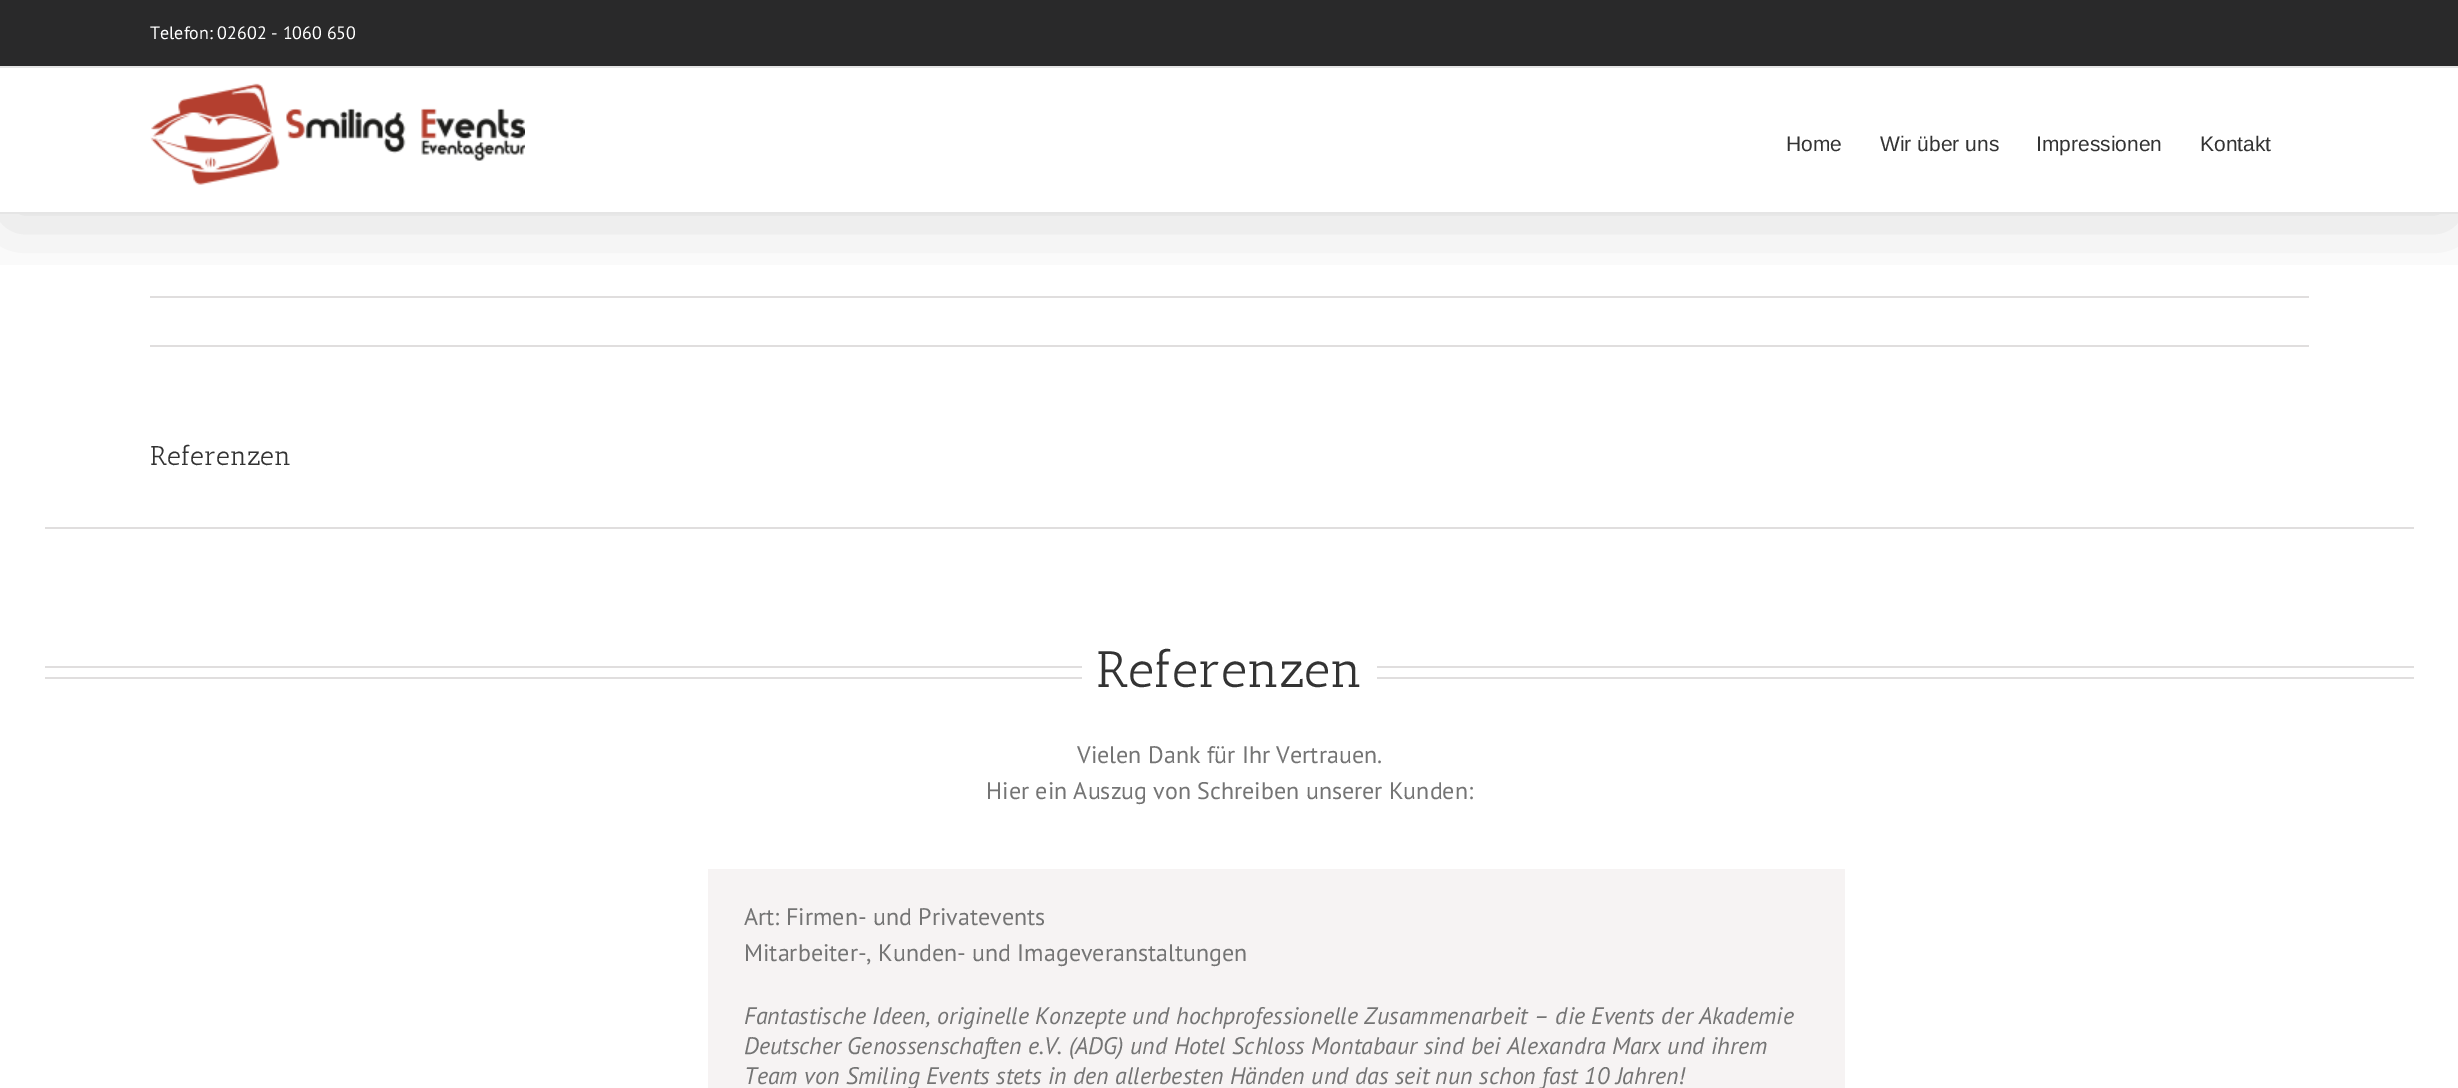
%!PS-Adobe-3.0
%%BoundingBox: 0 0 2458 1088
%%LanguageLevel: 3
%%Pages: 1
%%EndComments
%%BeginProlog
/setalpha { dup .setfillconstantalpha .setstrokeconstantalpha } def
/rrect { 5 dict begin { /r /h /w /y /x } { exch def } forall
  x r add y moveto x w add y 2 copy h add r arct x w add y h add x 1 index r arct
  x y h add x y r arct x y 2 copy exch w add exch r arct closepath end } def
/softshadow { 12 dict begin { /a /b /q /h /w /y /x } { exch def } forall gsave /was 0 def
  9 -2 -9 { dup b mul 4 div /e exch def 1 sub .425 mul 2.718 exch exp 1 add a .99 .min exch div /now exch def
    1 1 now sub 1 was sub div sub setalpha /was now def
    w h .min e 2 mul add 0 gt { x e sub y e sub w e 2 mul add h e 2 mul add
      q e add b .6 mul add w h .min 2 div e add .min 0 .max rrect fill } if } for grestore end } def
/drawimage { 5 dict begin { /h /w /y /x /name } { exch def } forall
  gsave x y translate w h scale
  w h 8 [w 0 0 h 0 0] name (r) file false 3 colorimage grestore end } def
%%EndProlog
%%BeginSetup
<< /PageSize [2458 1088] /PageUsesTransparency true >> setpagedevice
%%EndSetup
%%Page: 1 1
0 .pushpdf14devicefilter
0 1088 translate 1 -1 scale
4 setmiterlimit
1 setgray
0 0 2458 1088 rectfill
0.878 0.871 0.871 setrgbcolor
150 296 2159 2 rectfill
gsave
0 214 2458 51 rectclip
0 setgray
3 18 2453 207 0 37.5 0.14 softshadow
grestore
0.161 0.161 0.165 setrgbcolor
0 0 2458 66 rectfill
0.898 setgray
0 66 2458 2 rectfill
0 212 2458 2 rectfill
(images/1.raw) 150 83 375 102 drawimage
0.878 0.871 0.871 setrgbcolor
150 345 2159 2 rectfill
45 527 2369 2 rectfill
45 666 1037 2 rectfill
45 677 1037 2 rectfill
1377 666 1037 2 rectfill
1377 677 1037 2 rectfill
0.965 0.953 0.953 setrgbcolor
708 869 1137 219 rectfill
/PTSans-Regular [18 0 0 -18 0 0] selectfont
1 setgray
150 39 moveto (Telefon: 02602 - 1060 650) show
/LiberationSans-Regular [21 0 0 -21 0 0] selectfont
0.2 setgray
1786 151 moveto (Home) show
1880 151 moveto (Wir über uns) show
2036 151 moveto (Impressionen) show
2200 151 moveto (Kontakt) show
/AnticSlab-Regular [27 0 0 -27 0 0] selectfont
150 465 moveto (Referenzen) show
/AnticSlab-Regular [51 0 0 -51 0 0] selectfont
1096 687 moveto (Referenzen) show
/PTSans-Regular [24 0 0 -24 0 0] selectfont
0.455 setgray
1077 763 moveto (Vielen Dank für Ihr Vertrauen.) show
986 799 moveto (Hier ein Auszug von Schreiben unserer Kunden:) show
744 925 moveto (Art: Firmen- und Privatevents) show
744 961 moveto (Mitarbeiter-, Kunden- und Imageveranstaltungen) show
/PTSans-Italic [24 0 0 -24 0 0] selectfont
744 1024 moveto (Fantastische Ideen, originelle Konzepte und hochprofessionelle Zusammenarbeit – die Events der Akademie) show
744 1054 moveto (Deutscher Genossenschaften e.V. \(ADG\) und Hotel Schloss Montabaur sind bei Alexandra Marx und ihrem) show
744 1084 moveto (Team von Smiling Events stets in den allerbesten Händen und das seit nun schon fast 10 Jahren!) show
.poppdf14devicefilter showpage
%%EOF
